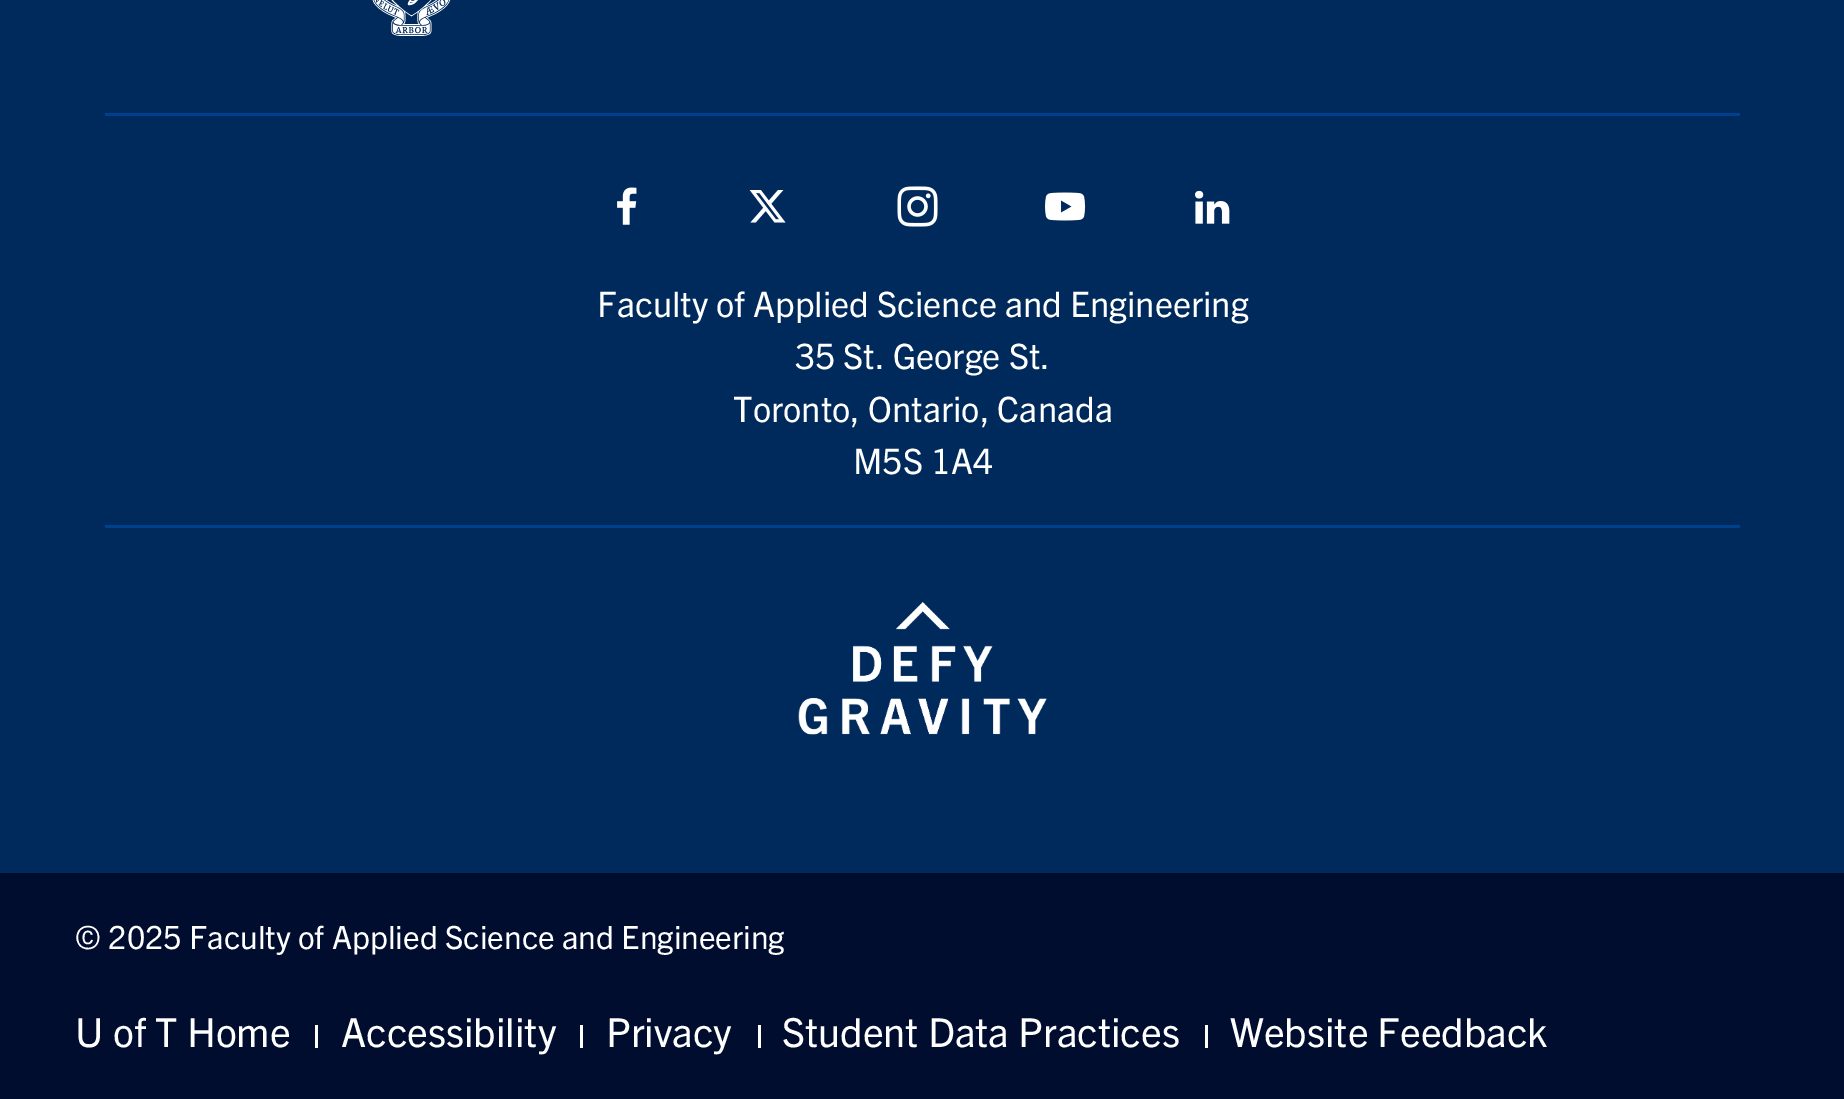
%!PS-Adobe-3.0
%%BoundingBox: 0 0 1844 1099
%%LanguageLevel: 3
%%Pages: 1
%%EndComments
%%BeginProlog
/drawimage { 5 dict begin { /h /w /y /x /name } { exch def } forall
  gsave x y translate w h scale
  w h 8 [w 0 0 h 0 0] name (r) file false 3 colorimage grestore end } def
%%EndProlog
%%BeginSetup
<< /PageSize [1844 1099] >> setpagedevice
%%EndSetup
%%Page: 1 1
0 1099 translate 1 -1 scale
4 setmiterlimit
0 0.165 0.361 setrgbcolor
0 0 1844 1099 rectfill
0 0.255 0.561 setrgbcolor
105 113 1635 3 rectfill
(images/1.raw) 372 0 79 36 drawimage
105 525 1635 3 rectfill
(images/2.raw) 617 187 20 38 drawimage
(images/3.raw) 749 190 37 33 drawimage
(images/4.raw) 897 186 41 41 drawimage
(images/5.raw) 1045 192 41 29 drawimage
(images/6.raw) 1195 190 35 34 drawimage
(images/7.raw) 798 602 249 133 drawimage
0 0.051 0.184 setrgbcolor
0 873 1844 226 rectfill
1 setgray
315 1025 3 23 rectfill
580 1025 3 23 rectfill
758 1025 3 23 rectfill
1205 1025 3 23 rectfill
/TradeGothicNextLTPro-Regular [35 0 0 -35 0 0] selectfont
597 317 moveto (Faculty of Applied Science and Engineering) show
795 369 moveto (35 St. George St.) show
733 422 moveto (Toronto, Ontario, Canada) show
853 474 moveto (M5S 1A4) show
/TradeGothicNextLTPro-Regular [32 0 0 -32 0 0] selectfont
75 949 moveto (© 2025 Faculty of Applied Science and Engineering) show
/TradeGothicNextLTPro-Regular [40 0 0 -40 0 0] selectfont
75 1047 moveto (U of T Home) show
341 1047 moveto (Accessibility) show
606 1047 moveto (Privacy) show
782 1047 moveto (Student Data Practices) show
1230 1047 moveto (Website Feedback) show
showpage
%%EOF
